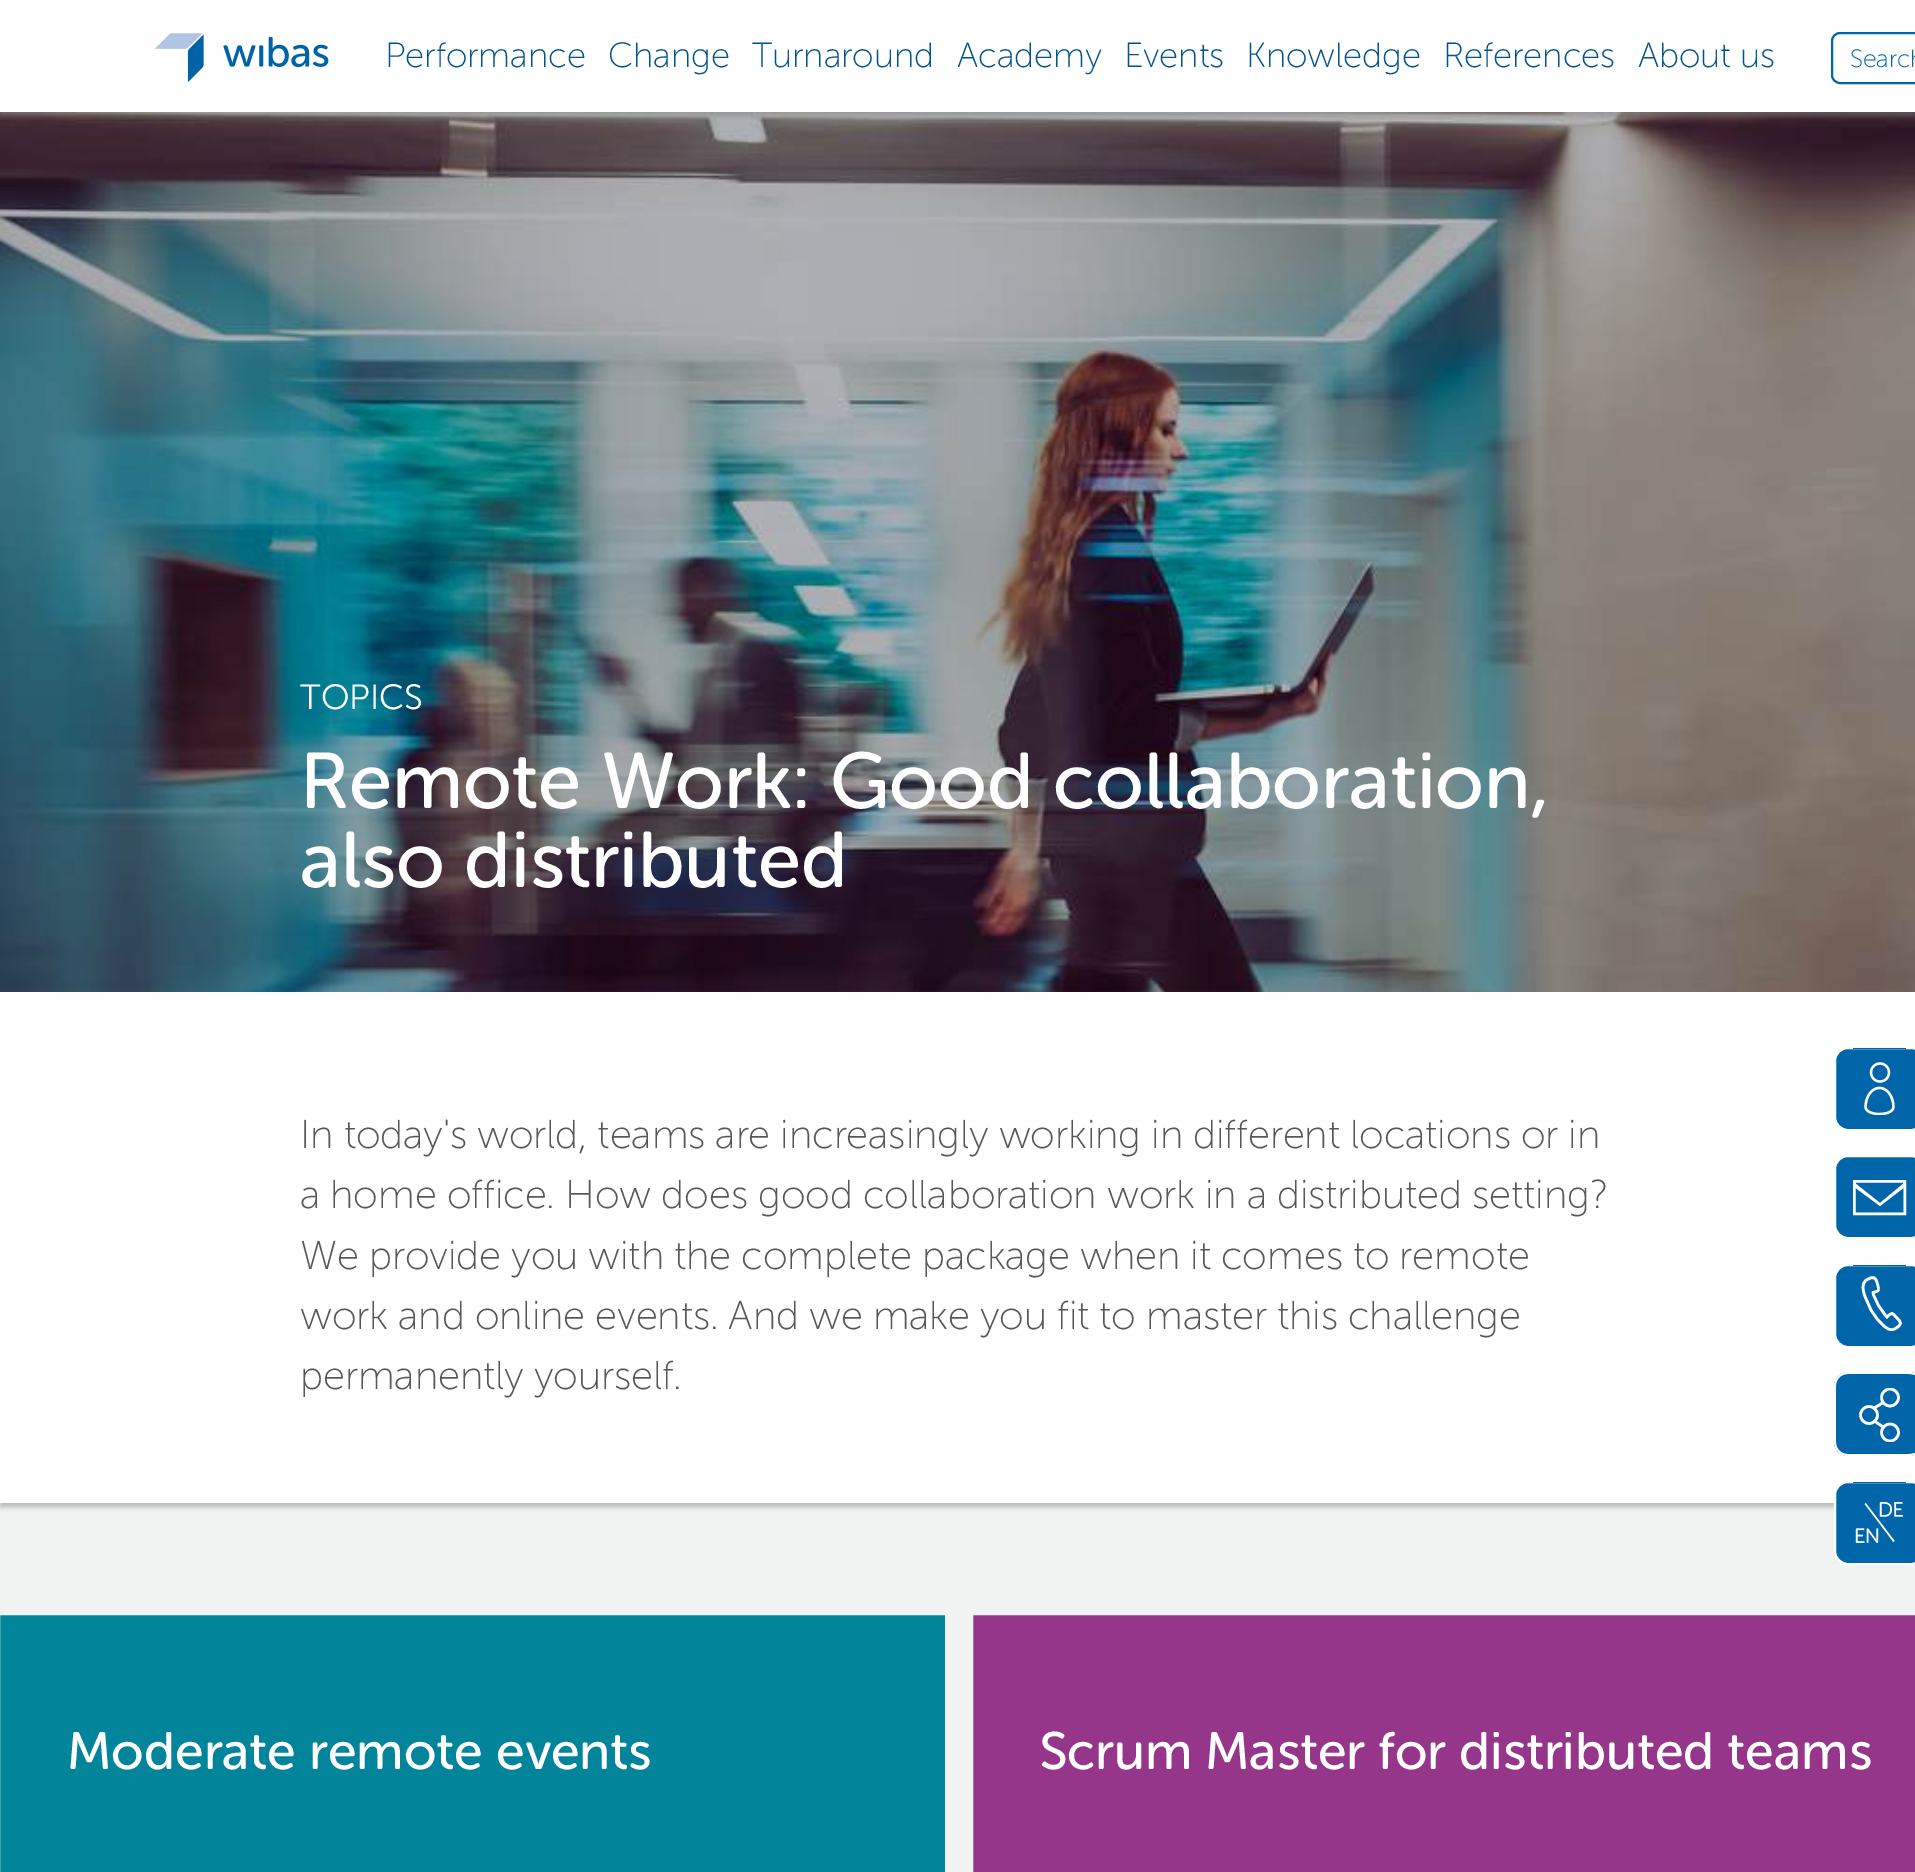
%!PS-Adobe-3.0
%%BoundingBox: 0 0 1915 1872
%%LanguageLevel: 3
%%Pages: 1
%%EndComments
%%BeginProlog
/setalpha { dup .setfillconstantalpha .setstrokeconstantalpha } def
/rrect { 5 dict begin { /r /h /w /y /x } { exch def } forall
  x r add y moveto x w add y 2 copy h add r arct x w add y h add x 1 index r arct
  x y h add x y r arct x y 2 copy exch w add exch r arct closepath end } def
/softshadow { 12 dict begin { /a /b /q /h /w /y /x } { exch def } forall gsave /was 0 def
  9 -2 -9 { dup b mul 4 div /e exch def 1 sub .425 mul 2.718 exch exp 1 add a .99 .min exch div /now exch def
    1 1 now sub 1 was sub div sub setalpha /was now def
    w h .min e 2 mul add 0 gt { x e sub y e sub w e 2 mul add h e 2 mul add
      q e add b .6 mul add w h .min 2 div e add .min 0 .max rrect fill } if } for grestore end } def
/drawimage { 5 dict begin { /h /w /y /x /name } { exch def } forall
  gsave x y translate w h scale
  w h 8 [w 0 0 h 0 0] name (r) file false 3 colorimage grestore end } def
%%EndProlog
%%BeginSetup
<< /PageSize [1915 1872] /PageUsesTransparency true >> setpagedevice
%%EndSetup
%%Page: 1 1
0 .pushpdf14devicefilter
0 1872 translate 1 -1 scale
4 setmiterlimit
1 setgray
0 0 1915 1872 rectfill
(images/2.raw) 0 112 1915 880 drawimage
gsave
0 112 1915 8 rectclip
0.518 setgray
0 4 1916 112 0 2.5 0.5 softshadow
grestore
(images/1.raw) 154 33 175 49 drawimage
0 0.4 0.663 setrgbcolor
2 setlinewidth
1832 33 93 50 8 rrect stroke
0.945 0.949 0.949 setrgbcolor
0 1503 1915 98 rectfill
0.518 setgray
0 996 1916 511 0 2.5 0.5 softshadow
1 setgray
0 992 1915 511 rectfill
0.008 0.522 0.608 setrgbcolor
newpath -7 1608 moveto 952 1608 lineto 952 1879 lineto -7 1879 lineto closepath gsave fill grestore
0.945 0.949 0.949 setrgbcolor
14 setlinewidth
stroke
0.588 0.212 0.545 setrgbcolor
newpath 966 1608 moveto 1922 1608 lineto 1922 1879 lineto 966 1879 lineto closepath gsave fill grestore
0.945 0.949 0.949 setrgbcolor
stroke
0 0.4 0.663 setrgbcolor
1835 1048 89 82 13 rrect gsave fill grestore
1 setgray
2 setlinewidth
stroke
0 0.4 0.663 setrgbcolor
1853 1048 53 1 rectfill
(images/3.raw) 1864 1062 31 53 drawimage
1835 1156 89 82 13 rrect gsave fill grestore
1 setgray
stroke
2.5 setlinewidth
1854.25 1181.25 50.5 32.5 rectstroke
gsave
1853 1180 53 35 rectclip
newpath 1856 1182 moveto 1856 1184 lineto 1880 1203 lineto 1903 1184 lineto 1903 1182 lineto 1856 1182 lineto 1853 1179 moveto 1906 1179 lineto 1906 1186 lineto 1880 1206 lineto 1853 1186 lineto closepath fill
grestore
0 0.4 0.663 setrgbcolor
1835 1265 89 82 13 rrect gsave fill grestore
1 setgray
2 setlinewidth
stroke
0 0.4 0.663 setrgbcolor
1853 1265 53 1 rectfill
1 setgray
2.6 setlinewidth
newpath 1873 1293 moveto 1875.5 1301.5 1880.5 1310 1887 1317 curveto 1892 1312 1892 1312.5 1896.5 1317.5 curveto 1901.5 1322.5 1902.5 1324 1895.5 1328.5 curveto 1892 1330.5 1889 1330 1886 1327.5 curveto 1879.5 1323 1875 1316.5 1871 1310 curveto 1865 1296.5 lineto 1863 1291 1861 1283.5 1866.5 1280 curveto 1874 1275.5 1875.5 1277 1877.5 1284 curveto 1879 1290.5 1880 1291 1873 1292.5 curveto closepath stroke
0 0.4 0.663 setrgbcolor
1834 1372 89 84 14 rrect fill
1 setgray
newpath 1848 1372 moveto 1909 1372 lineto 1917 1372 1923 1378 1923 1386 curveto 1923 1442 lineto 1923 1450 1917 1456 1909 1456 curveto 1848 1456 lineto 1840 1456 1834 1450 1834 1442 curveto 1834 1386 lineto 1834 1378 1840 1372 1848 1372 curveto closepath 1848 1374 moveto 1909 1374 lineto 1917 1374 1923 1379 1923 1386 curveto 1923 1442 lineto 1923 1449 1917 1454 1909 1454 curveto 1848 1454 lineto 1841 1454 1836 1449 1836 1442 curveto 1836 1386 lineto 1836 1379 1841 1374 1848 1374 curveto closepath eofill
newpath 1869 1415 8.5 0 360 arc closepath stroke
gsave
1853 1388 53 54 rectclip
newpath 1890 1397.5 8.5 0 360 arc closepath stroke
newpath 1890 1432.5 8.5 0 360 arc closepath stroke
grestore
newpath 1873.5 1408.5 moveto 1884 1402 lineto 1873.5 1420.5 moveto 1884 1427.5 lineto stroke
0 0.4 0.663 setrgbcolor
1835 1482 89 82 13 rrect gsave fill grestore
1 setgray
2 setlinewidth
stroke
0 0.4 0.663 setrgbcolor
1853 1482 53 1 rectfill
(images/4.raw) 1855 1502 48 42 drawimage
/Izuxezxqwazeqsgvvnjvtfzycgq-ExtraLight [35 0 0 -35 0 0] selectfont
0 0.329 0.541 setrgbcolor
385 67 moveto (Performance) show
608 67 moveto (Change) show
752 67 moveto (Turnaround) show
957 67 moveto (Academy) show
1124 67 moveto (Events) show
1246 67 moveto (Knowledge) show
1443 67 moveto (References) show
1638 67 moveto (About us) show
/Izuxezxqwazeqsgvvnjvtfzycgq-ExtraLight [25 0 0 -25 0 0] selectfont
0 0.4 0.663 setrgbcolor
1850 67 moveto (Search) show
/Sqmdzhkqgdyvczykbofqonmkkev-Light [35 0 0 -35 0 0] selectfont
1 setgray
300 709 moveto (TOPICS) show
/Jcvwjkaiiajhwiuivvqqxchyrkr-Regular [78.75 0 0 -78.75 0 0] selectfont
300 808 moveto (Remote Work: Good collaboration,) show
300 887 moveto (also distributed) show
/Izuxezxqwazeqsgvvnjvtfzycgq-ExtraLight [40.25 0 0 -40.25 0 0] selectfont
0.341 0.341 0.337 setrgbcolor
300 1148 moveto (In today's world, teams are increasingly working in different locations or in) show
300 1208 moveto (a home office. How does good collaboration work in a distributed setting?) show
300 1269 moveto (We provide you with the complete package when it comes to remote) show
300 1329 moveto (work and online events. And we make you fit to master this challenge) show
300 1389 moveto (permanently yourself.) show
/Jcvwjkaiiajhwiuivvqqxchyrkr-Regular [52.5 0 0 -52.5 0 0] selectfont
1 setgray
67 1769 moveto (Moderate remote events) show
1039 1769 moveto (Scrum Master for distributed teams) show
.poppdf14devicefilter showpage
%%EOF
